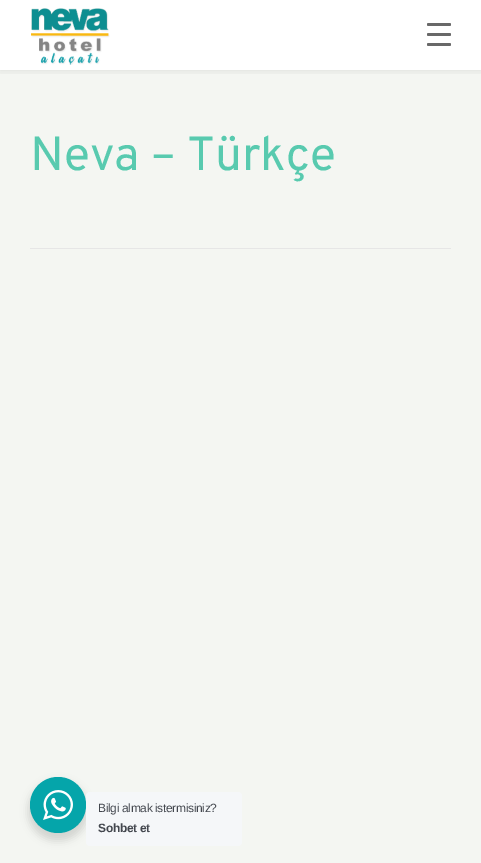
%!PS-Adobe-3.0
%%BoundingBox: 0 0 481 863
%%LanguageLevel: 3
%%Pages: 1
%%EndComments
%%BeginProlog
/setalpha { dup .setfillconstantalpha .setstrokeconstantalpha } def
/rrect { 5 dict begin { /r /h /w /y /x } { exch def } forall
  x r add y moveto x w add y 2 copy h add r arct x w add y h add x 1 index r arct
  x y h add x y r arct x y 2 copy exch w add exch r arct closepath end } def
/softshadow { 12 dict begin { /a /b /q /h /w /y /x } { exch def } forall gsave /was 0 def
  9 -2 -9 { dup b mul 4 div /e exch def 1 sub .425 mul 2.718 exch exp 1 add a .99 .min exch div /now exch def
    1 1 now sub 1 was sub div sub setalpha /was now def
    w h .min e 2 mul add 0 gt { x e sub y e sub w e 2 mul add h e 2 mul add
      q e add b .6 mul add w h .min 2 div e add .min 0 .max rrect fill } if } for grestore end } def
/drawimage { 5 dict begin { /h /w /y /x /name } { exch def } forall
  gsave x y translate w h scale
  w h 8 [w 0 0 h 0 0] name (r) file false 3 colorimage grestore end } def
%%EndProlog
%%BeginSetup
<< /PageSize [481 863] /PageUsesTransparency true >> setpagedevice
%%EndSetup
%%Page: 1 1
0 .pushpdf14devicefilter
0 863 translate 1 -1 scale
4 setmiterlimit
0.957 0.965 0.949 setrgbcolor
0 0 481 863 rectfill
1 setgray
0 0 481 70 rectfill
gsave
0 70 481 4 rectclip
0 setgray
0 0 481 70 0 5 0.1 softshadow
grestore
(images/1.raw) 31 8 79 57 drawimage
0.408 setgray
427 33 24 3 1.5 rrect fill
427 23 24 3 1.5 rrect fill
427 43 24 3 1.5 rrect fill
0.902 setgray
30 248 421 1 rectfill
0 setgray
28 781 60 60 30 4 0.14 softshadow
0.02 0.647 0.667 setrgbcolor
newpath 58 805 28 0 360 arc closepath fill
(images/2.raw) 43 790 30 30 drawimage
0.961 0.969 0.976 setrgbcolor
86 792 156 54 4 rrect fill
/Overpass-Regular [48 0 0 -48 0 0] selectfont
0.345 0.792 0.686 setrgbcolor
30 170 moveto (Neva – Türkçe) show
/LiberationSans-Regular [12 0 0 -12 0 0] selectfont
0.263 0.278 0.306 setrgbcolor
98 812 moveto -0.35 0 (Bilgi almak istermisiniz?) ashow
/LiberationSans-Bold [12 0 0 -12 0 0] selectfont
98 832 moveto -0.35 0 (Sohbet et) ashow
.poppdf14devicefilter showpage
%%EOF
